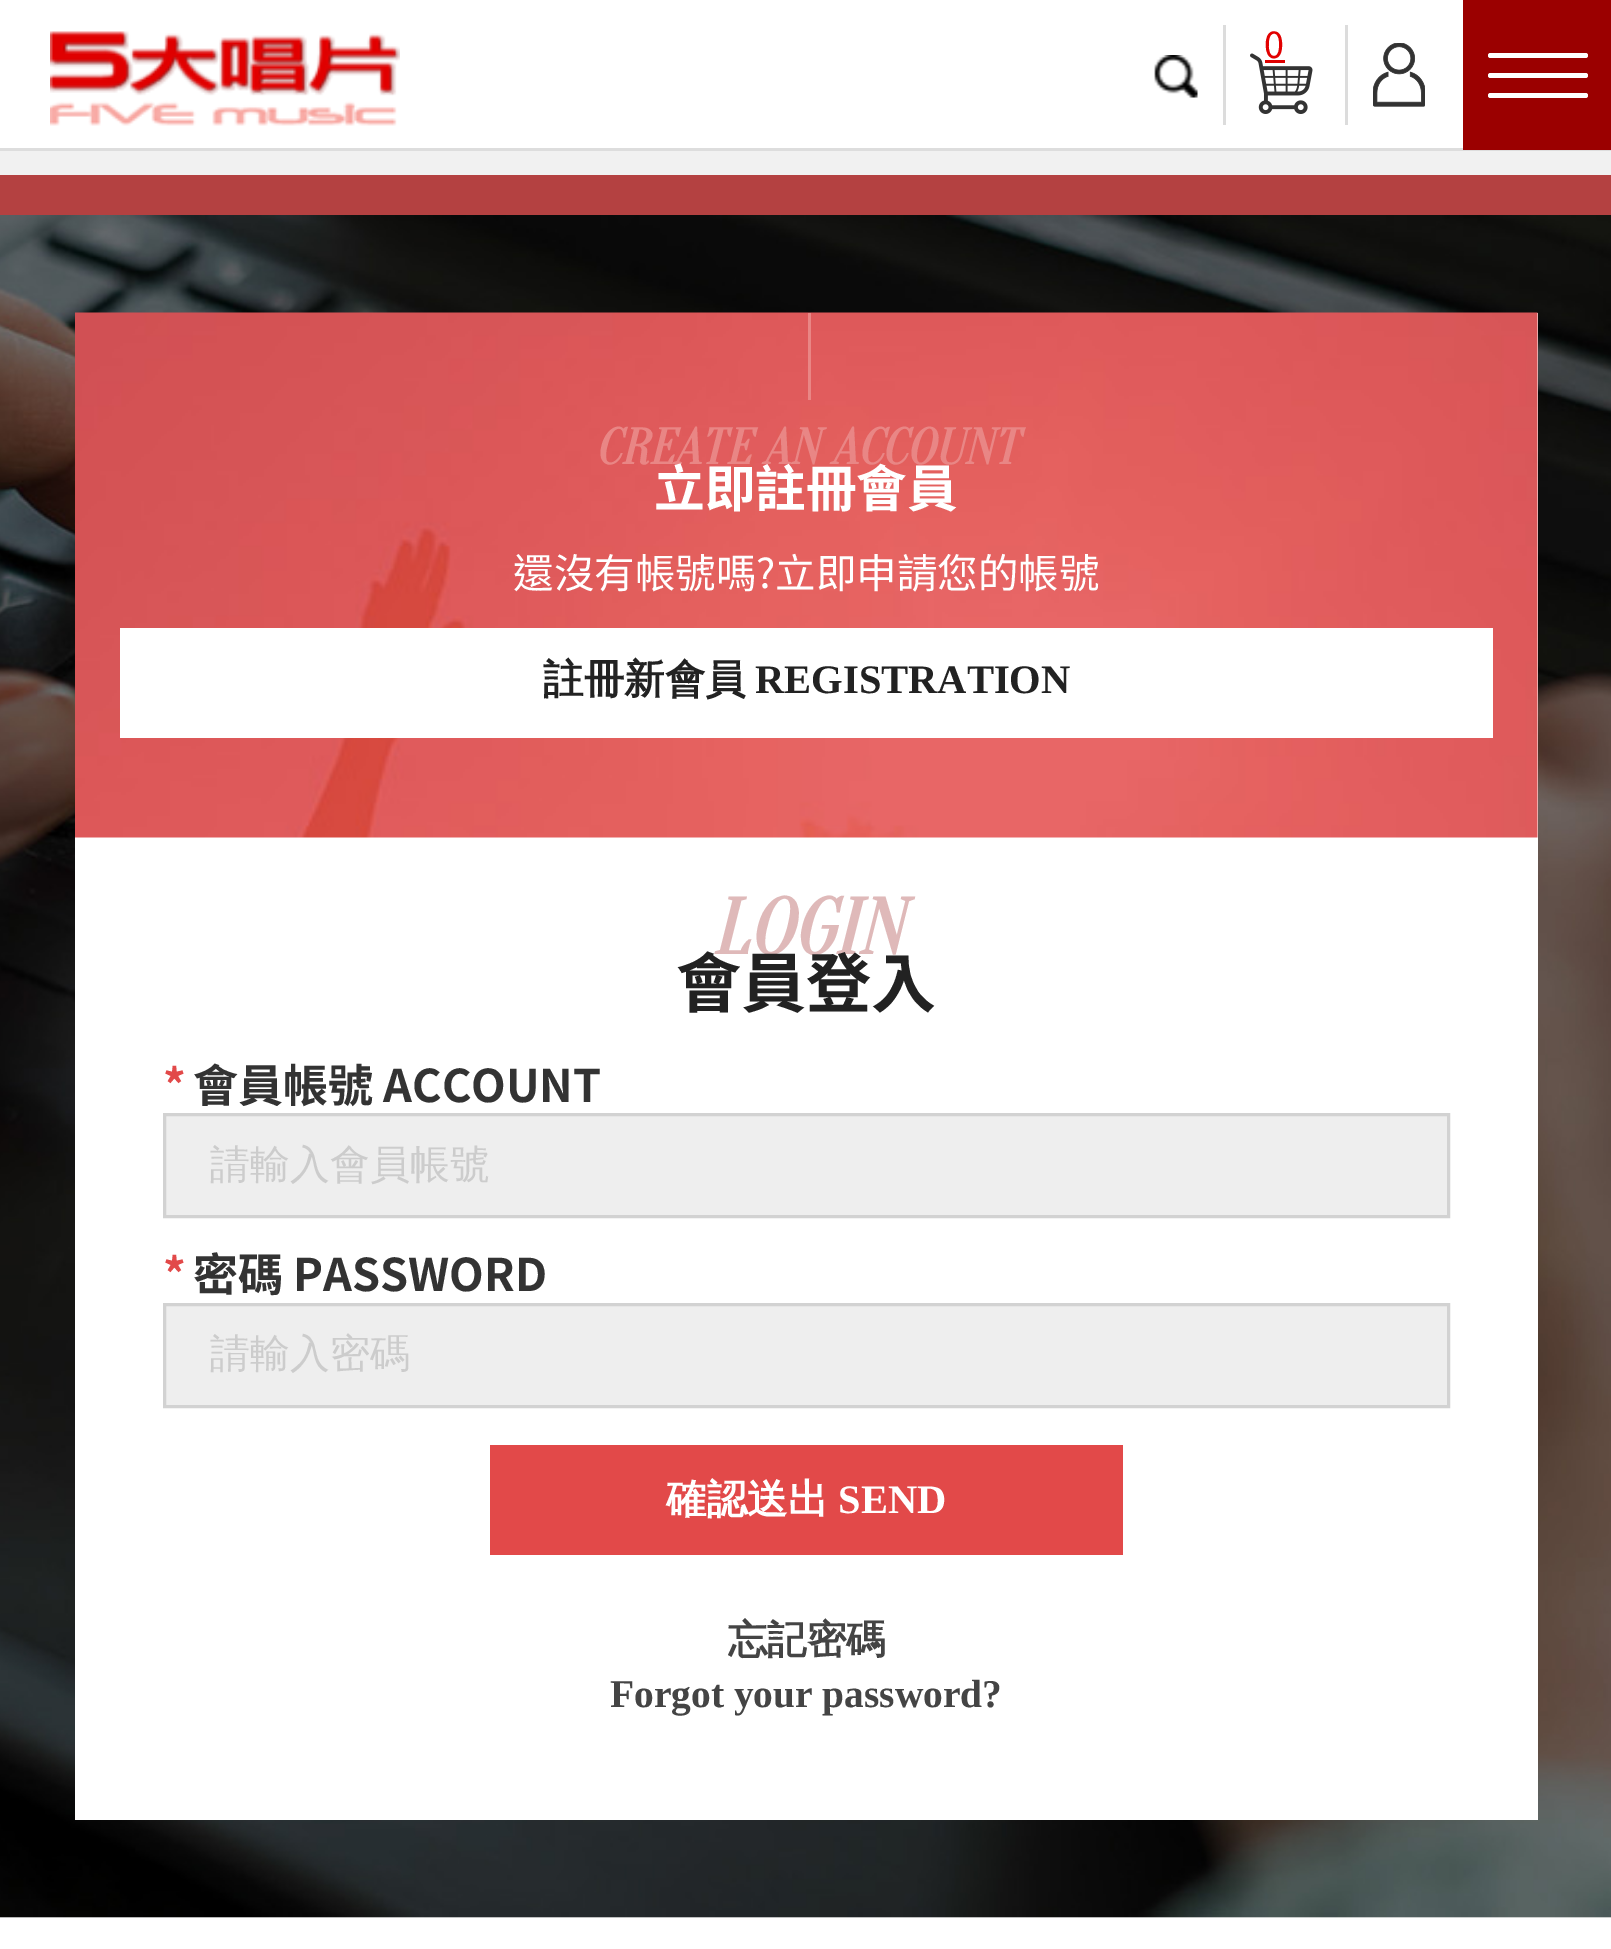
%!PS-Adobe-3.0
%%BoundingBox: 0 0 1611 1949
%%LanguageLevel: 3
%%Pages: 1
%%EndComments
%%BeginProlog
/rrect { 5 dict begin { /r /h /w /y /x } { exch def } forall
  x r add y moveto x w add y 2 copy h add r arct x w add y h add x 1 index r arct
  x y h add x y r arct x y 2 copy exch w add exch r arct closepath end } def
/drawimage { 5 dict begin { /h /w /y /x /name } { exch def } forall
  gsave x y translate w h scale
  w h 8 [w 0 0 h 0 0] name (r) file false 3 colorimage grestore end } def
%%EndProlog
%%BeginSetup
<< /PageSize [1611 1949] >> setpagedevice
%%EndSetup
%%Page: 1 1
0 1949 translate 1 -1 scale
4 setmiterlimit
1 setgray
0 0 1611 1949 rectfill
0.945 setgray
0 151 1611 1767 rectfill
0.867 setgray
0 148 1611 3 rectfill
(images/1.raw) 50 31 350 95 drawimage
0.863 setgray
1223 25 3 100 rectfill
(images/2.raw) 1250 53 63 61 drawimage
0.875 0 0 setrgbcolor
1265 60 20 3 rectfill
0.863 setgray
1345 25 3 100 rectfill
(images/3.raw) 1373 43 52 64 drawimage
(images/4.raw) 1154 55 44 43 drawimage
0.608 0 0 setrgbcolor
1463 0 148 150 rectfill
1 setgray
1488 53 100 5 2.5 rrect fill
1488 73 100 5 2.5 rrect fill
1488 93 100 5 2.5 rrect fill
0.706 0.255 0.255 setrgbcolor
0 175 1611 40 rectfill
(images/5.raw) 0 215 1611 1703 drawimage
1 setgray
75 313 1463 1507 rectfill
(images/6.raw) 75 312 1463 526 drawimage
0.914 0.525 0.522 setrgbcolor
808 313 3 87 rectfill
1 setgray
120 628 1373 110 rectfill
0.933 setgray
newpath 164.5 1114.5 moveto 1448.5 1114.5 lineto 1448.5 1216.5 lineto 164.5 1216.5 lineto closepath gsave fill grestore
0.824 setgray
3 setlinewidth
stroke
0.933 setgray
newpath 164.5 1304.5 moveto 1448.5 1304.5 lineto 1448.5 1406.5 lineto 164.5 1406.5 lineto closepath gsave fill grestore
0.824 setgray
stroke
0.886 0.286 0.286 setrgbcolor
490 1445 633 110 rectfill
/NotoSansTC-Regular [36 0 0 -36 0 0] selectfont
0.886 0 0 setrgbcolor
1264 58 moveto (0) show
/Oranienbaum-BoldItalic [50.6 0 0 -50.6 0 0] selectfont
0.914 0.525 0.522 setrgbcolor
595 464 moveto (CREATE AN ACCOUNT) show
/NotoSansTC-Bold [50.6 0 0 -50.6 0 0] selectfont
1 setgray
654 507 moveto (立即註冊會員) show
/NotoSansTC-Regular [40.5 0 0 -40.5 0 0] selectfont
513 588 moveto (還沒有帳號嗎?立即申請您的帳號) show
/WenQuanYiZenHei-Bold [40.5 0 0 -40.5 0 0] selectfont
0.133 setgray
543 693 moveto (註冊新會員) show
/LiberationSerif-Bold [40.5 0 0 -40.5 0 0] selectfont
755 693 moveto (REGISTRATION) show
/Oranienbaum-BoldItalic [79 0 0 -79 0 0] selectfont
0.875 0.725 0.725 setrgbcolor
711 954 moveto (LOGIN) show
/NotoSansTC-Bold [65 0 0 -65 0 0] selectfont
0.133 setgray
676 1007 moveto (會員登入) show
/NotoSansTC-Bold [45 0 0 -45 0 0] selectfont
0.886 0.286 0.286 setrgbcolor
163 1102 moveto (*) show
0.2 setgray
193 1102 moveto (會員帳號 ACCOUNT) show
/WenQuanYiZenHei-Medium [40 0 0 -40 0 0] selectfont
0.8 setgray
210 1178 moveto (請輸入會員帳號) show
/NotoSansTC-Bold [45 0 0 -45 0 0] selectfont
0.886 0.286 0.286 setrgbcolor
163 1291 moveto (*) show
0.2 setgray
193 1291 moveto (密碼 PASSWORD) show
/WenQuanYiZenHei-Medium [40 0 0 -40 0 0] selectfont
0.8 setgray
210 1367 moveto (請輸入密碼) show
/WenQuanYiZenHei-Bold [40.5 0 0 -40.5 0 0] selectfont
1 setgray
666 1513 moveto (確認送出) show
/LiberationSerif-Bold [40.5 0 0 -40.5 0 0] selectfont
838 1513 moveto (SEND) show
/WenQuanYiZenHei-Bold [39.4 0 0 -39.4 0 0] selectfont
0.267 setgray
728 1653 moveto (忘記密碼) show
/LiberationSerif-Bold [39.4 0 0 -39.4 0 0] selectfont
610 1707 moveto (Forgot your password?) show
showpage
%%EOF
